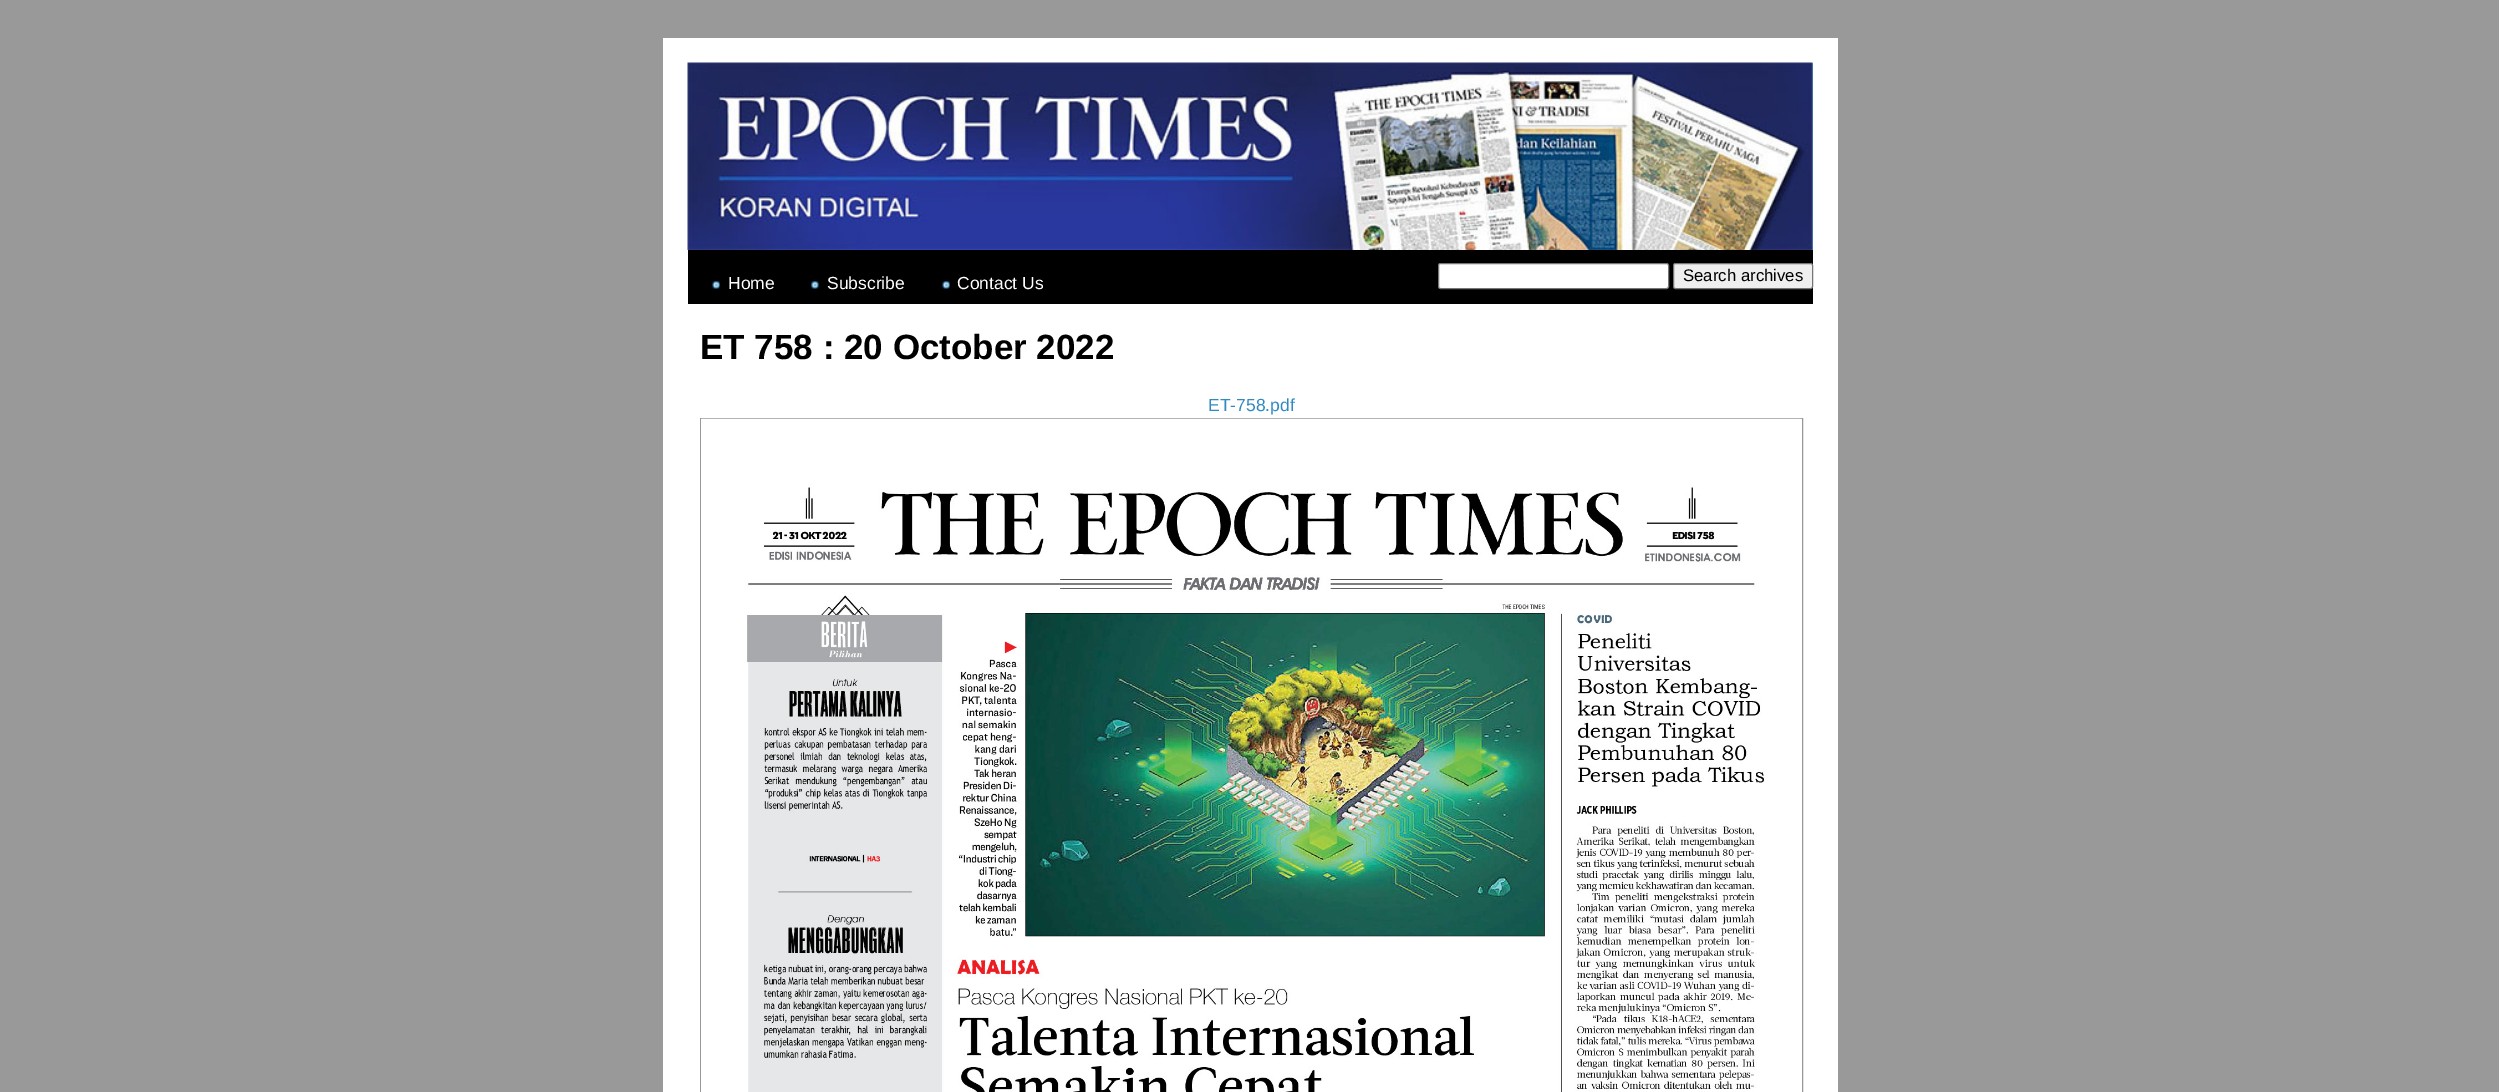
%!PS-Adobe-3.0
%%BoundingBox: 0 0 2499 1092
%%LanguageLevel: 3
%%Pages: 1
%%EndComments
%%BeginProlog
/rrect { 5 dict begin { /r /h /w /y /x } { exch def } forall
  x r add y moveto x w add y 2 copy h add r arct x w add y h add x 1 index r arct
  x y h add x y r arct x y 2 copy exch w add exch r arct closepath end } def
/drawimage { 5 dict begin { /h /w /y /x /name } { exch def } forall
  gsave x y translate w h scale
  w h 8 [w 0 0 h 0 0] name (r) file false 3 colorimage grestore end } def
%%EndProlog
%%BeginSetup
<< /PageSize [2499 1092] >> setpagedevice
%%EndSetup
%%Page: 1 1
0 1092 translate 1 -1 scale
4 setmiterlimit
0.6 setgray
0 0 2499 1092 rectfill
1 setgray
663 38 1175 1054 rectfill
0.349 0.655 0.843 setrgbcolor
1812 63 1 187 rectfill
(images/1.raw) 687 62 1126 188 drawimage
0 setgray
688 250 1125 54 rectfill
(images/2.raw) 712 281 8 8 drawimage
(images/3.raw) 811 281 8 8 drawimage
(images/4.raw) 942 281 8 8 drawimage
1 setgray
1438.5 263.5 230 25 2 rrect gsave fill grestore
0.463 setgray
stroke
0.937 setgray
1673.5 263.5 139 25 2 rrect gsave fill grestore
0.463 setgray
stroke
0.6 setgray
700.5 418.5 1102 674 rectstroke
(images/5.raw) 701 418 1101 674 drawimage
/LiberationSans-Regular [17.5 0 0 -17.5 0 0] selectfont
1 setgray
728 289 moveto (Home) show
827 289 moveto (Subscribe) show
957 289 moveto (Contact Us) show
/LiberationSans-Regular [16.75 0 0 -16.75 0 0] selectfont
0 setgray
1683 281 moveto (Search archives) show
/LiberationSans-Bold [35 0 0 -35 0 0] selectfont
700 359 moveto (ET 758 : 20 October 2022) show
/LiberationSans-Regular [17.5 0 0 -17.5 0 0] selectfont
0.188 0.541 0.753 setrgbcolor
1208 411 moveto (ET-758.pdf) show
showpage
%%EOF
